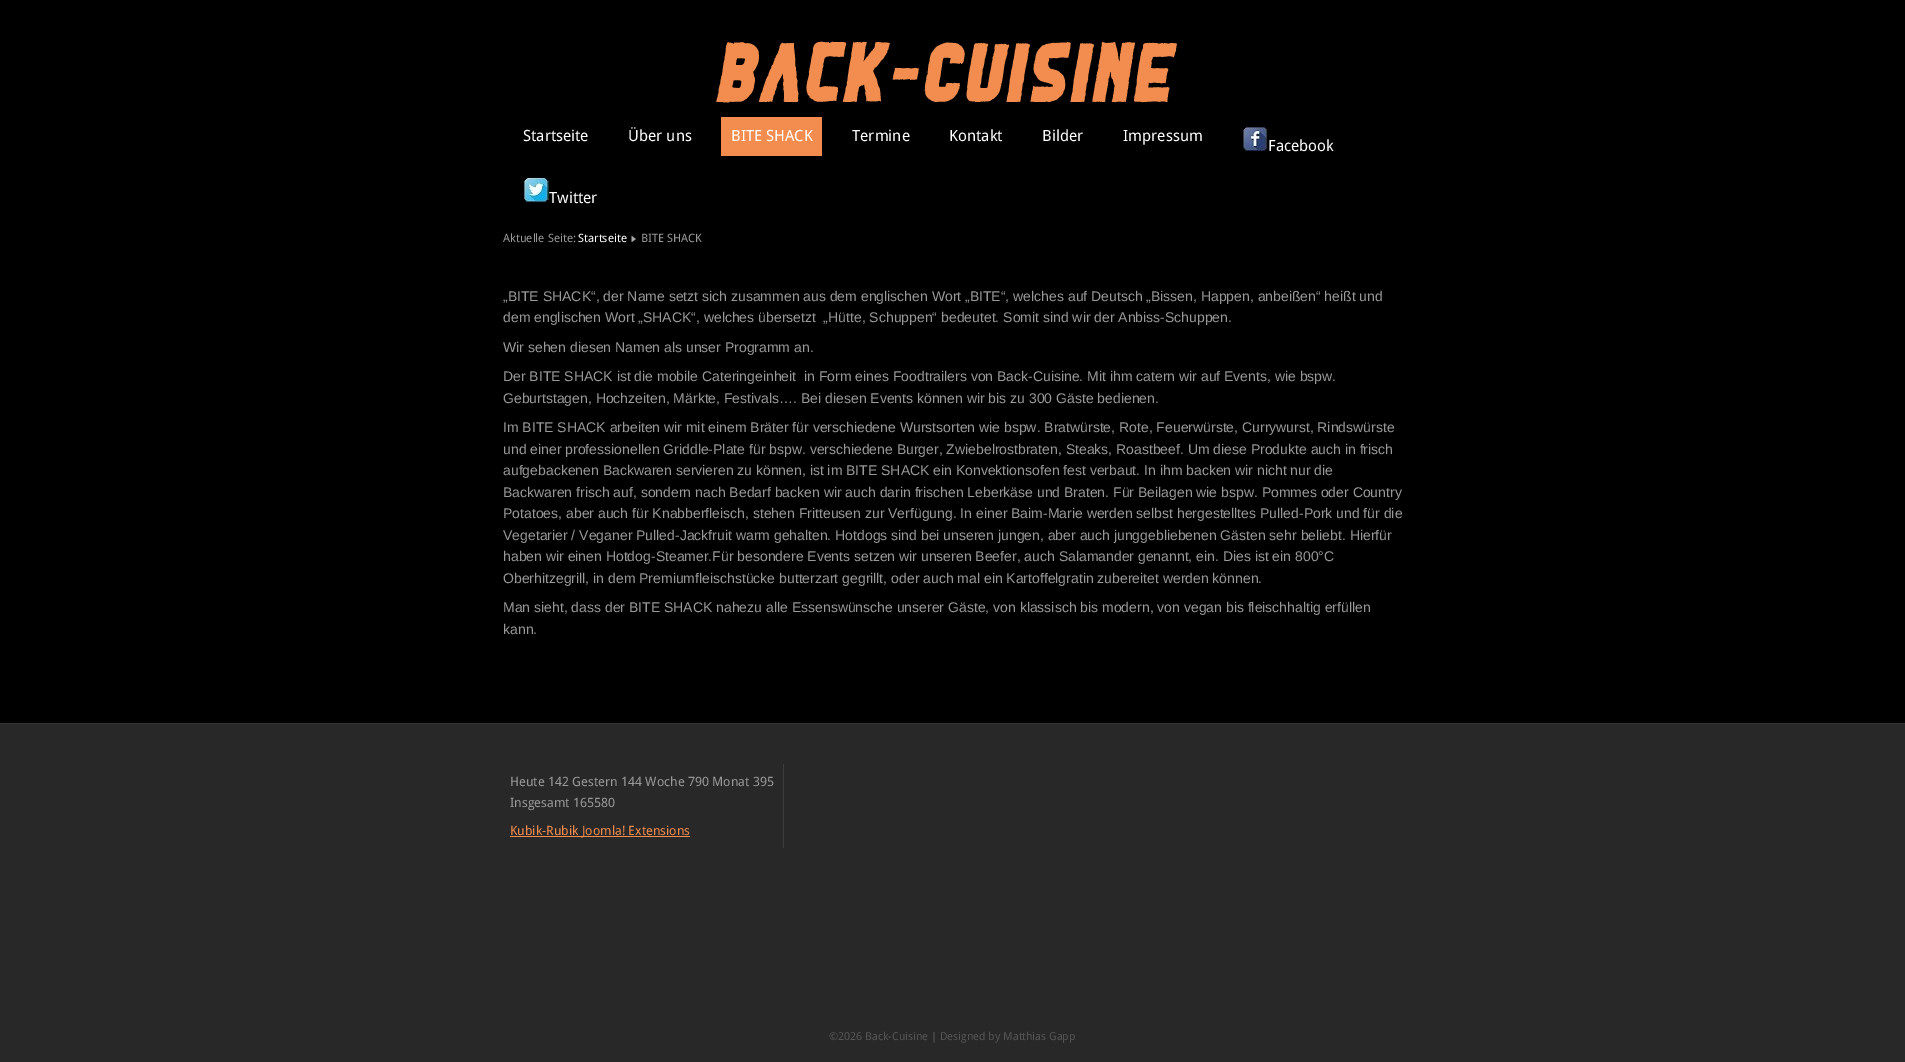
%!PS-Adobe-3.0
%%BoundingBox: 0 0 1905 1062
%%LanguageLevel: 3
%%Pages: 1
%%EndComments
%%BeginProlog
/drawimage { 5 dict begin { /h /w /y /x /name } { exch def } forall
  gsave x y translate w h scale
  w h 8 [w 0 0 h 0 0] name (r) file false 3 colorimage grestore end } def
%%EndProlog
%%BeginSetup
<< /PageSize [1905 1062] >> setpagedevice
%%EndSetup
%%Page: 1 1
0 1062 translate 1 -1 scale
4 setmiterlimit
0.157 setgray
0 0 1905 1062 rectfill
0 setgray
0 0 1905 219 rectfill
(images/1.raw) 716 41 461 62 drawimage
0.949 0.553 0.31 setrgbcolor
721 117 101 39 rectfill
(images/2.raw) 1242 127 26 24 drawimage
(images/3.raw) 523 177 26 26 drawimage
0 setgray
0 219 1905 504 rectfill
(images/4.raw) 631 235 5 7 drawimage
0.2 setgray
0 723 1905 1 rectfill
0.239 setgray
783 764 1 84 rectfill
0.949 0.553 0.31 setrgbcolor
510 836 180 1 rectfill
/DroidSans-Regular [15.5 0 0 -15.5 0 0] selectfont
1 setgray
523 141 moveto (Startseite) show
628 141 moveto (Über uns) show
731 141 moveto (BITE SHACK) show
852 141 moveto (Termine) show
949 141 moveto (Kontakt) show
1042 141 moveto (Bilder) show
1123 141 moveto (Impressum) show
1268 151 moveto (Facebook) show
549 203 moveto (Twitter) show
/DroidSans-Regular [11.5 0 0 -11.5 0 0] selectfont
0.6 setgray
503 242 moveto (Aktuelle Seite:) show
1 setgray
578 242 moveto (Startseite) show
0.6 setgray
641 242 moveto (BITE SHACK) show
/LiberationSans-Regular [14 0 0 -14 0 0] selectfont
503 301 moveto („BITE SHACK“, der Name setzt sich zusammen aus dem englischen Wort „BITE“, welches auf Deutsch „Bissen, Happen, anbeißen“ heißt und) show
503 322 moveto (dem englischen Wort „SHACK“, welches übersetzt  „Hütte, Schuppen“ bedeutet. Somit sind wir der Anbiss-Schuppen.) show
503 352 moveto (Wir sehen diesen Namen als unser Programm an.) show
503 381 moveto (Der BITE SHACK ist die mobile Cateringeinheit  in Form eines Foodtrailers von Back-Cuisine. Mit ihm catern wir auf Events, wie bspw.) show
503 403 moveto (Geburtstagen, Hochzeiten, Märkte, Festivals…. Bei diesen Events können wir bis zu 300 Gäste bedienen.) show
503 432 moveto (Im BITE SHACK arbeiten wir mit einem Bräter für verschiedene Wurstsorten wie bspw. Bratwürste, Rote, Feuerwürste, Currywurst, Rindswürste) show
503 454 moveto (und einer professionellen Griddle-Plate für bspw. verschiedene Burger, Zwiebelrostbraten, Steaks, Roastbeef. Um diese Produkte auch in frisch) show
503 475 moveto (aufgebackenen Backwaren servieren zu können, ist im BITE SHACK ein Konvektionsofen fest verbaut. In ihm backen wir nicht nur die) show
503 497 moveto (Backwaren frisch auf, sondern nach Bedarf backen wir auch darin frischen Leberkäse und Braten. Für Beilagen wie bspw. Pommes oder Country) show
503 518 moveto (Potatoes, aber auch für Knabberfleisch, stehen Fritteusen zur Verfügung. In einer Baim-Marie werden selbst hergestelltes Pulled-Pork und für die) show
503 540 moveto (Vegetarier / Veganer Pulled-Jackfruit warm gehalten. Hotdogs sind bei unseren jungen, aber auch junggebliebenen Gästen sehr beliebt. Hierfür) show
503 561 moveto (haben wir einen Hotdog-Steamer.Für besondere Events setzen wir unseren Beefer, auch Salamander genannt, ein. Dies ist ein 800°C) show
503 583 moveto (Oberhitzegrill, in dem Premiumfleischstücke butterzart gegrillt, oder auch mal ein Kartoffelgratin zubereitet werden können.) show
503 612 moveto (Man sieht, dass der BITE SHACK nahezu alle Essenswünsche unserer Gäste, von klassisch bis modern, von vegan bis fleischhaltig erfüllen) show
503 634 moveto (kann.) show
/DroidSans-Regular [12.8 0 0 -12.8 0 0] selectfont
510 786 moveto (Heute 142 Gestern 144 Woche 790 Monat 395) show
510 807 moveto (Insgesamt 165580) show
0.949 0.553 0.31 setrgbcolor
510 835 moveto (Kubik-Rubik Joomla! Extensions) show
/DroidSans-Regular [11 0 0 -11 0 0] selectfont
0.333 setgray
829 1040 moveto (©2026 Back-Cuisine | Designed by Matthias Gapp) show
showpage
%%EOF
